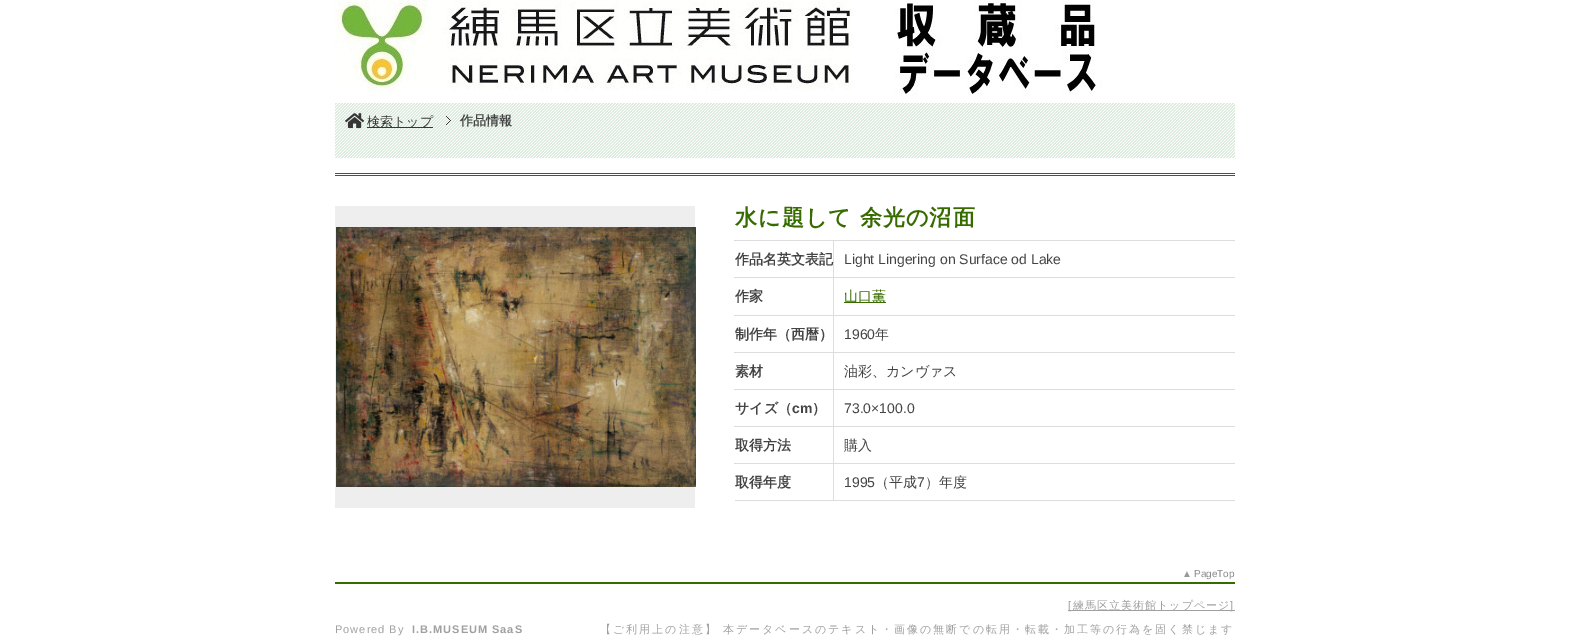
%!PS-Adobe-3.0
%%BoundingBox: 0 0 1569 637
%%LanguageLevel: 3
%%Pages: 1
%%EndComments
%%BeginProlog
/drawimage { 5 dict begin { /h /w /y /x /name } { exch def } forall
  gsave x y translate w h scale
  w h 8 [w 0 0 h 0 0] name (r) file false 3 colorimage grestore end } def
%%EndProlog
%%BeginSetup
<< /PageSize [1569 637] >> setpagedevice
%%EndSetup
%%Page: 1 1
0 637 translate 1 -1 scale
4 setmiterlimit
1 setgray
0 0 1569 637 rectfill
(images/1.raw) 335 0 767 96 drawimage
0.871 0.925 0.875 setrgbcolor
335 103 900 55 rectfill
(images/2.raw) 335 103 900 55 drawimage
(images/3.raw) 345 113 20 16 drawimage
0.212 setgray
367 127 66 1 rectfill
(images/4.raw) 446 116 5 9 drawimage
0.212 0.42 0 setrgbcolor
335 173 900 1 rectfill
335 175 900 1 rectfill
0.933 setgray
335 206 360 302 rectfill
(images/5.raw) 336 227 360 260 drawimage
0.867 setgray
735 500 500 1 rectfill
833 240 402 1 rectfill
833 277 402 1 rectfill
833 315 402 1 rectfill
833 352 402 1 rectfill
833 389 402 1 rectfill
833 426 402 1 rectfill
833 463 402 1 rectfill
833 463 1 38 rectfill
734 463 100 1 rectfill
833 426 1 38 rectfill
734 426 100 1 rectfill
833 389 1 38 rectfill
734 389 100 1 rectfill
833 352 1 38 rectfill
734 352 100 1 rectfill
833 315 1 38 rectfill
734 315 100 1 rectfill
833 277 1 39 rectfill
734 277 100 1 rectfill
833 240 1 38 rectfill
734 240 100 1 rectfill
0.212 0.42 0 setrgbcolor
844 302 42 1 rectfill
335 582 900 2 rectfill
0.627 setgray
1068 610 167 1 rectfill
/WenQuanYiZenHei-Medium [13 0 0 -13 0 0] selectfont
0.212 setgray
367 126 moveto (検索トップ) show
/WenQuanYiZenHei-Bold [13 0 0 -13 0 0] selectfont
0.267 setgray
460 125 moveto (作品情報) show
/WenQuanYiZenHei-Bold [22.1 0 0 -22.1 0 0] selectfont
0.212 0.42 0 setrgbcolor
735 225 moveto 1 0 (水に題して 余光の沼面) ashow
/WenQuanYiZenHei-Bold [14 0 0 -14 0 0] selectfont
0.267 setgray
735 264 moveto (作品名英文表記) show
/LiberationSans-Regular [14 0 0 -14 0 0] selectfont
844 264 moveto (Light Lingering on Surface od Lake) show
/WenQuanYiZenHei-Bold [14 0 0 -14 0 0] selectfont
735 301 moveto (作家) show
/WenQuanYiZenHei-Medium [14 0 0 -14 0 0] selectfont
0.212 0.42 0 setrgbcolor
844 301 moveto (山口薫) show
/WenQuanYiZenHei-Bold [14 0 0 -14 0 0] selectfont
0.267 setgray
735 339 moveto (制作年（西暦）) show
/LiberationSans-Regular [14 0 0 -14 0 0] selectfont
844 339 moveto (1960) show
/WenQuanYiZenHei-Medium [14 0 0 -14 0 0] selectfont
875 339 moveto (年) show
/WenQuanYiZenHei-Bold [14 0 0 -14 0 0] selectfont
735 376 moveto (素材) show
/WenQuanYiZenHei-Medium [14 0 0 -14 0 0] selectfont
844 376 moveto (油彩、カンヴァス) show
/WenQuanYiZenHei-Bold [14 0 0 -14 0 0] selectfont
735 413 moveto (サイズ（) show
/LiberationSans-Bold [14 0 0 -14 0 0] selectfont
792 413 moveto (cm) show
/WenQuanYiZenHei-Bold [14 0 0 -14 0 0] selectfont
812 413 moveto (）) show
/LiberationSans-Regular [14 0 0 -14 0 0] selectfont
844 413 moveto (73.0×100.0) show
/WenQuanYiZenHei-Bold [14 0 0 -14 0 0] selectfont
735 450 moveto (取得方法) show
/WenQuanYiZenHei-Medium [14 0 0 -14 0 0] selectfont
844 450 moveto (購入) show
/WenQuanYiZenHei-Bold [14 0 0 -14 0 0] selectfont
735 487 moveto (取得年度) show
/LiberationSans-Regular [14 0 0 -14 0 0] selectfont
844 487 moveto (1995) show
/WenQuanYiZenHei-Medium [14 0 0 -14 0 0] selectfont
875 487 moveto (（平成) show
/LiberationSans-Regular [14 0 0 -14 0 0] selectfont
917 487 moveto (7) show
/WenQuanYiZenHei-Medium [14 0 0 -14 0 0] selectfont
925 487 moveto (）年度) show
/LiberationSans-Regular [10 0 0 -10 0 0] selectfont
0.6 setgray
1182 577 moveto (▲) show
0.533 setgray
1194 577 moveto (PageTop) show
/LiberationSans-Regular [11 0 0 -11 0 0] selectfont
0.627 setgray
1068 609 moveto 1 0 ([) ashow
/WenQuanYiZenHei-Medium [11 0 0 -11 0 0] selectfont
1073 609 moveto 1 0 (練馬区立美術館トップページ) ashow
/LiberationSans-Regular [11 0 0 -11 0 0] selectfont
1230 609 moveto 1 0 (]) ashow
335 633 moveto 1 0 (Powered By) ashow
/LiberationSans-Bold [11 0 0 -11 0 0] selectfont
412 633 moveto 1 0 (I.B.MUSEUM SaaS) ashow
/WenQuanYiZenHei-Medium [11 0 0 -11 0 0] selectfont
600 633 moveto 2 0 (【ご利用上の注意】 本データベースのテキスト・画像の無断での転用・転載・加工等の行為を固く禁じます) ashow
showpage
%%EOF
